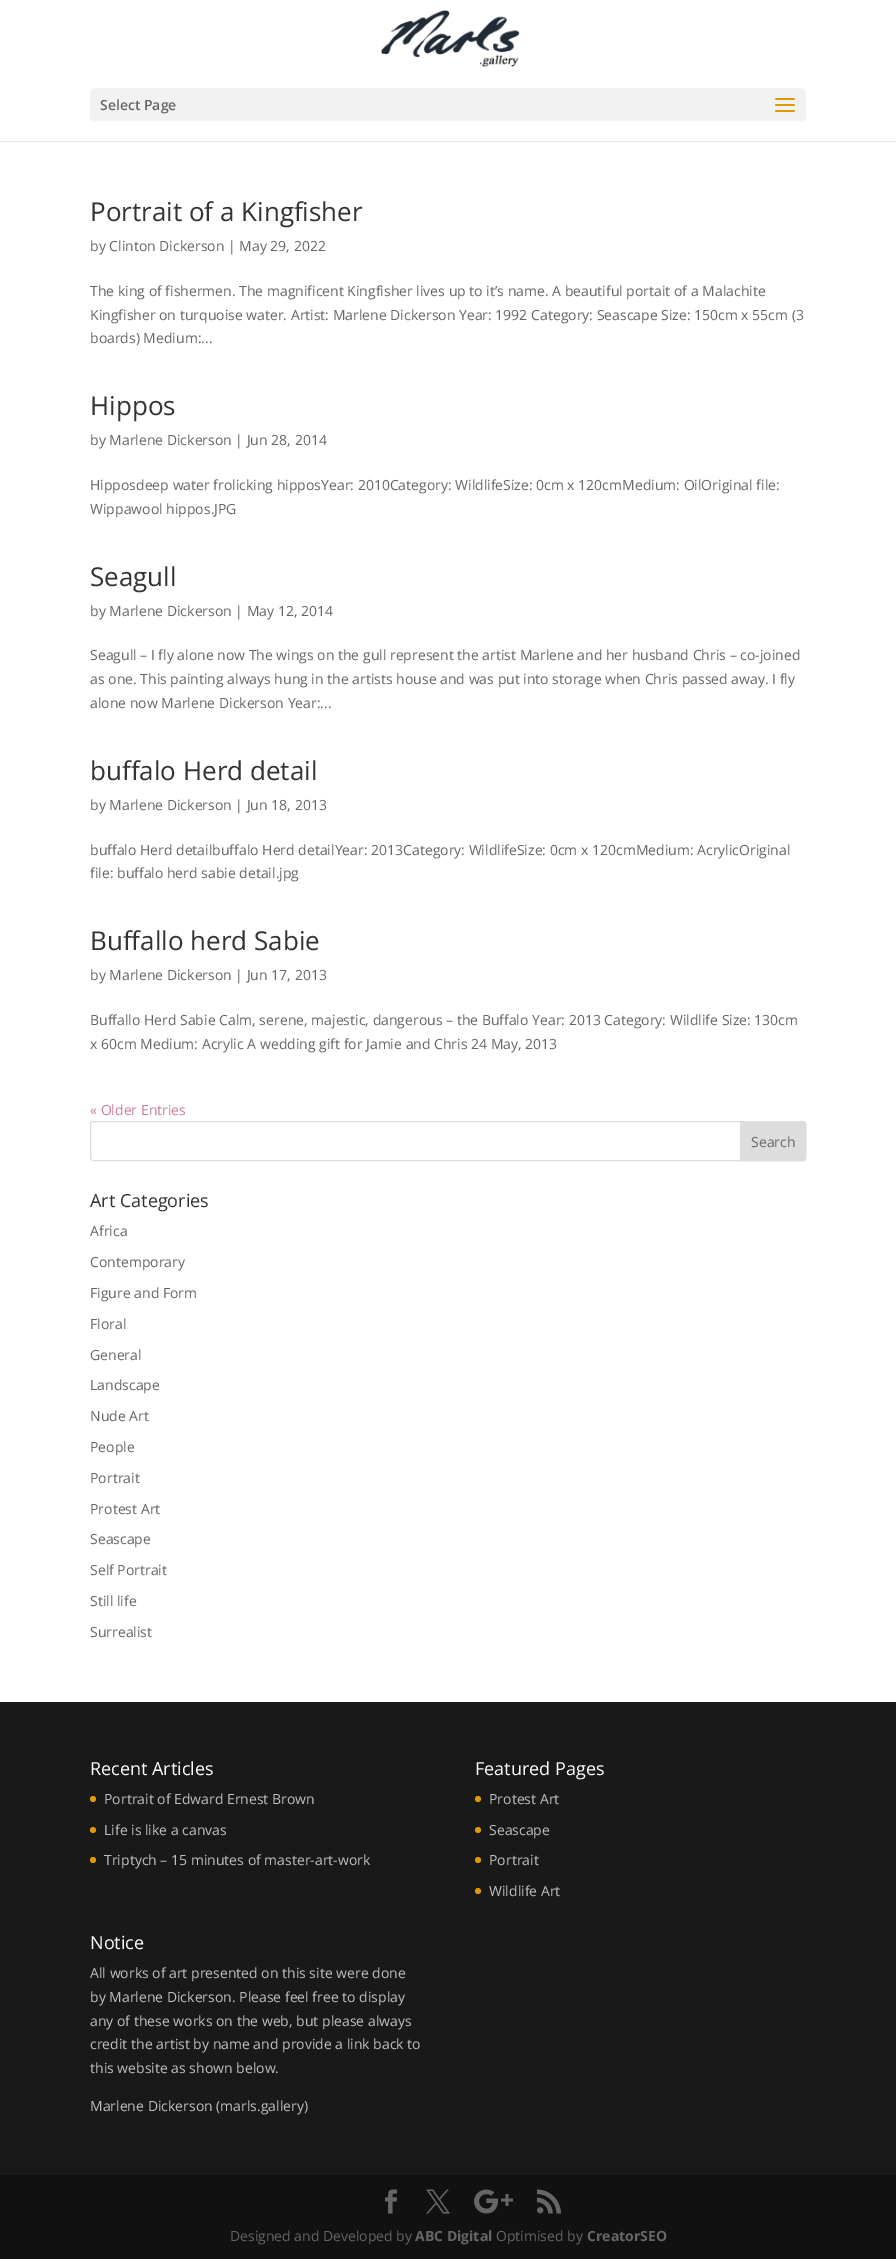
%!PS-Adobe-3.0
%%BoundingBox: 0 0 896 2259
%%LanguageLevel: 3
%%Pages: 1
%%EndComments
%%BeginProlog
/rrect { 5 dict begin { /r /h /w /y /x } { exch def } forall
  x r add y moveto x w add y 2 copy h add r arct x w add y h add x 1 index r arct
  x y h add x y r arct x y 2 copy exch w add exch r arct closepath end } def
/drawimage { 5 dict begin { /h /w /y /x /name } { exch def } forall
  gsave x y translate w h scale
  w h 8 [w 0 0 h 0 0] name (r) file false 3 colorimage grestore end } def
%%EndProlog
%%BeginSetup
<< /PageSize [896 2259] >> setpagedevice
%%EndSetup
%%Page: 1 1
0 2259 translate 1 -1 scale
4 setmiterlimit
1 setgray
0 0 896 2259 rectfill
0.902 setgray
0 141 896 1 rectfill
(images/1.raw) 381 10 139 57 drawimage
0.949 setgray
90 88 716 33 5 rrect fill
(images/2.raw) 775 98 20 14 drawimage
0.867 setgray
90.5 1121.5 715 39 2.5 rrect stroke
newpath 740.5 1121.5 moveto 803 1121.5 lineto 804.5 1121.5 805.5 1122.5 805.5 1124 curveto 805.5 1158 lineto 805.5 1159.5 804.5 1160.5 803 1160.5 curveto 740.5 1160.5 lineto closepath gsave fill grestore
stroke
0.098 setgray
0 1702 896 473 rectfill
0.878 0.6 0 setrgbcolor
newpath 93 1799 3 0 360 arc closepath fill
newpath 93 1830 3 0 360 arc closepath fill
newpath 93 1860 3 0 360 arc closepath fill
newpath 478 1799 3 0 360 arc closepath fill
newpath 478 1830 3 0 360 arc closepath fill
newpath 478 1860 3 0 360 arc closepath fill
newpath 478 1891 3 0 360 arc closepath fill
0.067 setgray
0 2175 896 84 rectfill
(images/3.raw) 385 2189 12 25 drawimage
(images/4.raw) 426 2189 24 25 drawimage
(images/5.raw) 474 2189 39 25 drawimage
(images/6.raw) 537 2189 24 25 drawimage
/OpenSans-SemiBold [14 0 0 -14 0 0] selectfont
0.4 setgray
100 110 moveto (Select Page) show
/OpenSans-Regular [26 0 0 -26 0 0] selectfont
0.2 setgray
90 221 moveto (Portrait of a Kingfisher) show
/OpenSans-Regular [14 0 0 -14 0 0] selectfont
0.4 setgray
90 251 moveto (by Clinton Dickerson | May 29, 2022) show
90 296 moveto (The king of fishermen. The magnificent Kingfisher lives up to it’s name. A beautiful portait of a Malachite) show
90 320 moveto (Kingfisher on turquoise water. Artist: Marlene Dickerson Year: 1992 Category: Seascape Size: 150cm x 55cm \(3) show
90 343 moveto (boards\) Medium:...) show
/OpenSans-Regular [26 0 0 -26 0 0] selectfont
0.2 setgray
90 415 moveto (Hippos) show
/OpenSans-Regular [14 0 0 -14 0 0] selectfont
0.4 setgray
90 445 moveto (by Marlene Dickerson | Jun 28, 2014) show
90 490 moveto (Hipposdeep water frolicking hipposYear: 2010Category: WildlifeSize: 0cm x 120cmMedium: OilOriginal file:) show
90 514 moveto (Wippawool hippos.JPG) show
/OpenSans-Regular [26 0 0 -26 0 0] selectfont
0.2 setgray
90 586 moveto (Seagull) show
/OpenSans-Regular [14 0 0 -14 0 0] selectfont
0.4 setgray
90 616 moveto (by Marlene Dickerson | May 12, 2014) show
90 660 moveto (Seagull – I fly alone now The wings on the gull represent the artist Marlene and her husband Chris – co-joined) show
90 684 moveto (as one. This painting always hung in the artists house and was put into storage when Chris passed away. I fly) show
90 708 moveto (alone now Marlene Dickerson Year:...) show
/OpenSans-Regular [26 0 0 -26 0 0] selectfont
0.2 setgray
90 780 moveto (buffalo Herd detail) show
/OpenSans-Regular [14 0 0 -14 0 0] selectfont
0.4 setgray
90 810 moveto (by Marlene Dickerson | Jun 18, 2013) show
90 855 moveto (buffalo Herd detailbuffalo Herd detailYear: 2013Category: WildlifeSize: 0cm x 120cmMedium: AcrylicOriginal) show
90 878 moveto (file: buffalo herd sabie detail.jpg) show
/OpenSans-Regular [26 0 0 -26 0 0] selectfont
0.2 setgray
90 950 moveto (Buffallo herd Sabie) show
/OpenSans-Regular [14 0 0 -14 0 0] selectfont
0.4 setgray
90 980 moveto (by Marlene Dickerson | Jun 17, 2013) show
90 1025 moveto (Buffallo Herd Sabie Calm, serene, majestic, dangerous – the Buffalo Year: 2013 Category: Wildlife Size: 130cm) show
90 1049 moveto (x 60cm Medium: Acrylic A wedding gift for Jamie and Chris 24 May, 2013) show
0.78 0.494 0.576 setrgbcolor
90 1115 moveto (« Older Entries) show
0.4 setgray
751 1147 moveto (Search) show
/OpenSans-Regular [18 0 0 -18 0 0] selectfont
0.2 setgray
90 1207 moveto (Art Categories) show
/OpenSans-Regular [14 0 0 -14 0 0] selectfont
0.4 setgray
90 1236 moveto (Africa) show
90 1267 moveto (Contemporary) show
90 1298 moveto (Figure and Form) show
90 1329 moveto (Floral) show
90 1360 moveto (General) show
90 1390 moveto (Landscape) show
90 1421 moveto (Nude Art) show
90 1452 moveto (People) show
90 1483 moveto (Portrait) show
90 1514 moveto (Protest Art) show
90 1544 moveto (Seascape) show
90 1575 moveto (Self Portrait) show
90 1606 moveto (Still life) show
90 1637 moveto (Surrealist) show
/OpenSans-Regular [18 0 0 -18 0 0] selectfont
1 setgray
90 1775 moveto (Recent Articles) show
/OpenSans-Regular [14 0 0 -14 0 0] selectfont
0.753 setgray
104 1804 moveto (Portrait of Edward Ernest Brown) show
104 1835 moveto (Life is like a canvas) show
104 1865 moveto (Triptych – 15 minutes of master-art-work) show
/OpenSans-Regular [18 0 0 -18 0 0] selectfont
1 setgray
475 1775 moveto (Featured Pages) show
/OpenSans-Regular [14 0 0 -14 0 0] selectfont
0.753 setgray
489 1804 moveto (Protest Art) show
489 1835 moveto (Seascape) show
489 1865 moveto (Portrait) show
489 1896 moveto (Wildlife Art) show
/OpenSans-Regular [18 0 0 -18 0 0] selectfont
1 setgray
90 1949 moveto (Notice) show
/OpenSans-Regular [14 0 0 -14 0 0] selectfont
0.753 setgray
90 1978 moveto (All works of art presented on this site were done) show
90 2002 moveto (by Marlene Dickerson. Please feel free to display) show
90 2026 moveto (any of these works on the web, but please always) show
90 2049 moveto (credit the artist by name and provide a link back to) show
90 2073 moveto (this website as shown below.) show
90 2111 moveto (Marlene Dickerson \(marls.gallery\)) show
0.4 setgray
230 2241 moveto (Designed and Developed by) show
/OpenSans-Bold [14 0 0 -14 0 0] selectfont
415 2241 moveto (ABC Digital) show
/OpenSans-Regular [14 0 0 -14 0 0] selectfont
496 2241 moveto (Optimised by) show
/OpenSans-Bold [14 0 0 -14 0 0] selectfont
587 2241 moveto (CreatorSEO) show
showpage
%%EOF
